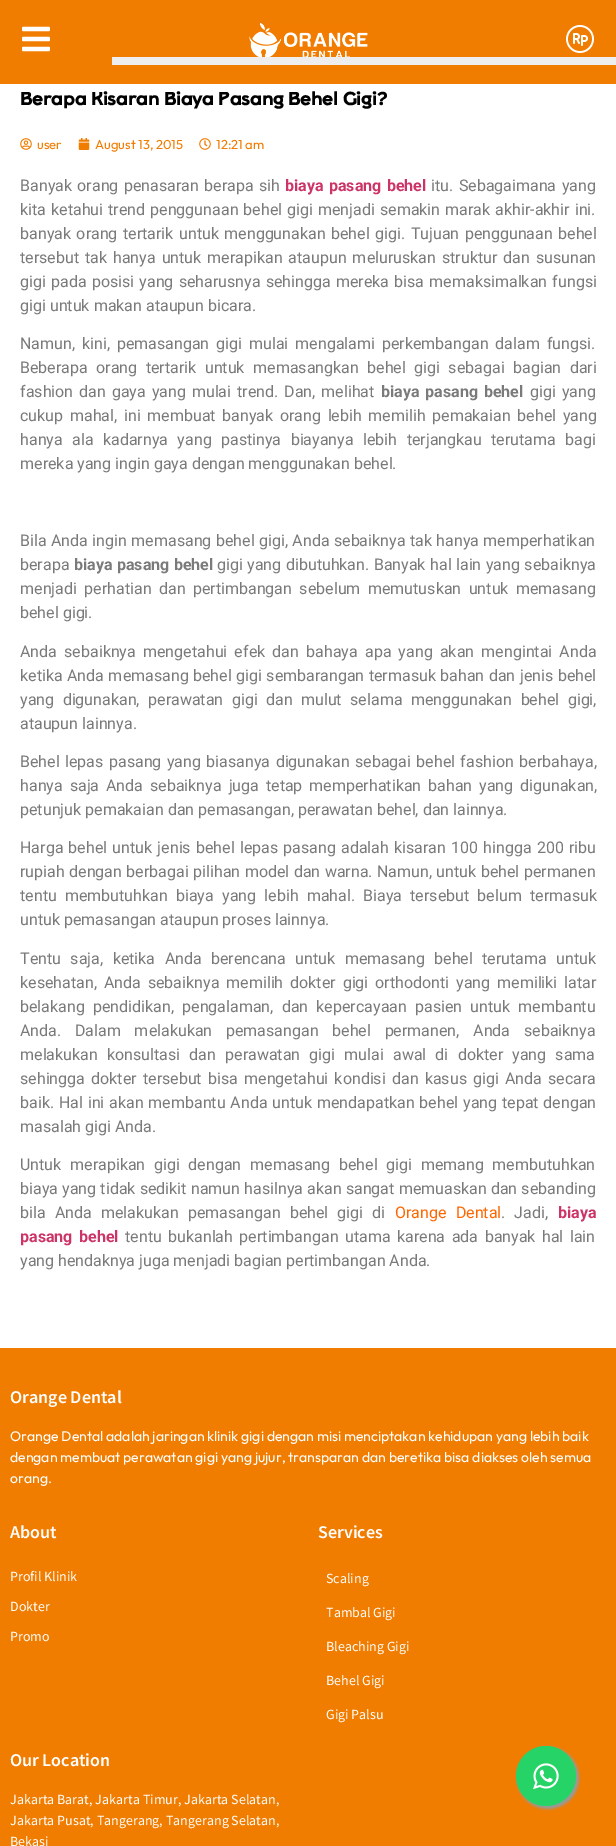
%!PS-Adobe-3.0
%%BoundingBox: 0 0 616 1846
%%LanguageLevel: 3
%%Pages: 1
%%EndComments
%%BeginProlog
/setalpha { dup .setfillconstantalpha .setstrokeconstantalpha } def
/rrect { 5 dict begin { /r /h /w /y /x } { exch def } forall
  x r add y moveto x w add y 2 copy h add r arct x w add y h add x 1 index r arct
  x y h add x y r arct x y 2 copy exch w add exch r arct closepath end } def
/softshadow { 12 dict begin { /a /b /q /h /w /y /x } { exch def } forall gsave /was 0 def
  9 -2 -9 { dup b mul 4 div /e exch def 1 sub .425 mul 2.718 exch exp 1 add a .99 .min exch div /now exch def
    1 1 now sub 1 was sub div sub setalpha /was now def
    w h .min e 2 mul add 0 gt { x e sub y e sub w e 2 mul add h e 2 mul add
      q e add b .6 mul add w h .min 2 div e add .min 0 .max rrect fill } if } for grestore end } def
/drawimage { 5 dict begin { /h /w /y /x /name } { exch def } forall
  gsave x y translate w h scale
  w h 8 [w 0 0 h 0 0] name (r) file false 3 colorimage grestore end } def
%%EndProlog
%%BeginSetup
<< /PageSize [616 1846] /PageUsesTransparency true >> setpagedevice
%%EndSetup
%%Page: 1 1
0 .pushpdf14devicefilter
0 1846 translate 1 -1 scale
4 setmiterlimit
1 setgray
0 0 616 1846 rectfill
0.941 0.486 0 setrgbcolor
0 0 616 84 rectfill
(images/1.raw) 22 26 28 26 drawimage
(images/2.raw) 249 23 119 34 drawimage
(images/3.raw) 566 25 28 28 drawimage
0.933 setgray
112 57 504 8 rectfill
(images/4.raw) 20 138 12 12 drawimage
(images/5.raw) 78 138 12 12 drawimage
(images/6.raw) 199 138 12 12 drawimage
0.941 0.486 0 setrgbcolor
0 1348 616 498 rectfill
0.6 setgray
518 1748 60 60 30 1.5 1 softshadow
518 1748 60 60 30 1.5 1 softshadow
0.145 0.827 0.4 setrgbcolor
newpath 546 1776 30 0 360 arc closepath fill
(images/7.raw) 533 1763 26 27 drawimage
/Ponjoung-Bold [18 0 0 -18 0 0] selectfont
0 setgray
20 105 moveto (Berapa Kisaran Biaya Pasang Behel Gigi?) show
/Outfit-Regular [13 0 0 -13 0 0] selectfont
0.941 0.486 0 setrgbcolor
37 149 moveto (user) show
95 149 moveto (August 13, 2015) show
216 149 moveto (12:21 am) show
/Roboto-Regular [16 0 0 -16 0 0] selectfont
0.478 setgray
20 191 moveto 1.5 0 32 (Banyak orang penasaran berapa sih) widthshow
/Roboto-Bold [16 0 0 -16 0 0] selectfont
0.8 0.2 0.4 setrgbcolor
285 191 moveto 1.5 0 32 (biaya pasang behel) widthshow
/Roboto-Regular [16 0 0 -16 0 0] selectfont
0.478 setgray
431 191 moveto 1.5 0 32 (itu. Sebagaimana yang) widthshow
20 215 moveto 1.1 0 32 (kita ketahui trend penggunaan behel gigi menjadi semakin marak akhir-akhir ini.) widthshow
20 239 moveto 1.5 0 32 (banyak orang tertarik untuk menggunakan behel gigi. Tujuan penggunaan behel) widthshow
20 263 moveto 2 0 32 (tersebut tak hanya untuk merapikan ataupun meluruskan struktur dan susunan) widthshow
20 287 moveto 1.25 0 32 (gigi pada posisi yang seharusnya sehingga mereka bisa memaksimalkan fungsi) widthshow
20 311 moveto (gigi untuk makan ataupun bicara.) show
20 349 moveto 3 0 32 (Namun, kini, pemasangan gigi mulai mengalami perkembangan dalam fungsi.) widthshow
20 373 moveto 4.5 0 32 (Beberapa orang tertarik untuk memasangkan behel gigi sebagai bagian dari) widthshow
20 397 moveto 2 0 32 (fashion dan gaya yang mulai trend. Dan, melihat) widthshow
/Roboto-Bold [16 0 0 -16 0 0] selectfont
381 397 moveto 2 0 32 (biaya pasang behel) widthshow
/Roboto-Regular [16 0 0 -16 0 0] selectfont
530 397 moveto 2 0 32 (gigi yang) widthshow
20 421 moveto 2.75 0 32 (cukup mahal, ini membuat banyak orang lebih memilih pemakaian behel yang) widthshow
20 445 moveto 5.5 0 32 (hanya ala kadarnya yang pastinya biayanya lebih terjangkau terutama bagi) widthshow
20 469 moveto (mereka yang ingin gaya dengan menggunakan behel.) show
20 546 moveto 0.5 0 32 (Bila Anda ingin memasang behel gigi, Anda sebaiknya tak hanya memperhatikan) widthshow
20 570 moveto (berapa) show
/Roboto-Bold [16 0 0 -16 0 0] selectfont
74 570 moveto 0.5 0 32 (biaya pasang behel) widthshow
/Roboto-Regular [16 0 0 -16 0 0] selectfont
217 570 moveto 0.5 0 32 (gigi yang dibutuhkan. Banyak hal lain yang sebaiknya) widthshow
20 594 moveto 3.5 0 32 (menjadi perhatian dan pertimbangan sebelum memutuskan untuk memasang) widthshow
20 618 moveto (behel gigi.) show
20 657 moveto 3.25 0 32 (Anda sebaiknya mengetahui efek dan bahaya apa yang akan mengintai Anda) widthshow
20 681 moveto 0.5 0 32 (ketika Anda memasang behel gigi sembarangan termasuk bahan dan jenis behel) widthshow
20 705 moveto 4.5 0 32 (yang digunakan, perawatan gigi dan mulut selama menggunakan behel gigi,) widthshow
20 729 moveto (ataupun lainnya.) show
20 767 moveto 1.5 0 32 (Behel lepas pasang yang biasanya digunakan sebagai behel fashion berbahaya,) widthshow
20 791 moveto 3 0 32 (hanya saja Anda sebaiknya juga tetap memperhatikan bahan yang digunakan,) widthshow
20 815 moveto (petunjuk pemakaian dan pemasangan, perawatan behel, dan lainnya.) show
20 853 moveto 1.25 0 32 (Harga behel untuk jenis behel lepas pasang adalah kisaran 100 hingga 200 ribu) widthshow
20 877 moveto 0.5 0 32 (rupiah dengan berbagai pilihan model dan warna. Namun, untuk behel permanen) widthshow
20 901 moveto 4.25 0 32 (tentu membutuhkan biaya yang lebih mahal. Biaya tersebut belum termasuk) widthshow
20 925 moveto (untuk pemasangan ataupun proses lainnya.) show
20 964 moveto 5.5 0 32 (Tentu saja, ketika Anda berencana untuk memasang behel terutama untuk) widthshow
20 988 moveto 3 0 32 (kesehatan, Anda sebaiknya memilih dokter gigi orthodonti yang memiliki latar) widthshow
20 1012 moveto 4.25 0 32 (belakang pendidikan, pengalaman, dan kepercayaan pasien untuk membantu) widthshow
20 1036 moveto 9.75 0 32 (Anda. Dalam melakukan pemasangan behel permanen, Anda sebaiknya) widthshow
20 1060 moveto 5.25 0 32 (melakukan konsultasi dan perawatan gigi mulai awal di dokter yang sama) widthshow
20 1084 moveto 2.25 0 32 (sehingga dokter tersebut bisa mengetahui kondisi dan kasus gigi Anda secara) widthshow
20 1108 moveto 0.9 0 32 (baik. Hal ini akan membantu Anda untuk mendapatkan behel yang tepat dengan) widthshow
20 1132 moveto (masalah gigi Anda.) show
20 1170 moveto 4.75 0 32 (Untuk merapikan gigi dengan memasang behel gigi memang membutuhkan) widthshow
20 1194 moveto 0.25 0 32 (biaya yang tidak sedikit namun hasilnya akan sangat memuaskan dan sebanding) widthshow
20 1218 moveto 5.25 0 32 (bila Anda melakukan pemasangan behel gigi di) widthshow
1 0.4 0 setrgbcolor
395 1218 moveto 5.25 0 32 (Orange Dental) widthshow
0.478 setgray
501 1218 moveto 5.25 0 32 (. Jadi,) widthshow
/Roboto-Bold [16 0 0 -16 0 0] selectfont
0.8 0.2 0.4 setrgbcolor
558 1218 moveto (biaya) show
20 1242 moveto 2.5 0 32 (pasang behel) widthshow
/Roboto-Regular [16 0 0 -16 0 0] selectfont
0.478 setgray
125 1242 moveto 2.5 0 32 (tentu bukanlah pertimbangan utama karena ada banyak hal lain) widthshow
20 1266 moveto (yang hendaknya juga menjadi bagian pertimbangan Anda.) show
/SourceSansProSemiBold-SemiBold [18 0 0 -18 0 0] selectfont
1 setgray
10 1403 moveto (Orange Dental) show
/Outfit-Regular [14 0 0 -14 0 0] selectfont
10 1441 moveto (Orange Dental adalah jaringan klinik gigi dengan misi menciptakan kehidupan yang lebih baik) show
10 1462 moveto (dengan membuat perawatan gigi yang jujur, transparan dan beretika bisa diakses oleh semua) show
10 1483 moveto (orang.) show
/SourceSansProSemiBold-SemiBold [18 0 0 -18 0 0] selectfont
10 1538 moveto (About) show
/SourceSansPro-Regular [14 0 0 -14 0 0] selectfont
10 1581 moveto (Profil Klinik) show
10 1611 moveto (Dokter) show
10 1641 moveto (Promo) show
/SourceSansProSemiBold-SemiBold [18 0 0 -18 0 0] selectfont
318 1538 moveto (Services) show
/SourceSansPro-Regular [14 0 0 -14 0 0] selectfont
326 1583 moveto (Scaling) show
326 1617 moveto (Tambal Gigi) show
326 1651 moveto (Bleaching Gigi) show
326 1685 moveto (Behel Gigi) show
326 1719 moveto (Gigi Palsu) show
/SourceSansProSemiBold-SemiBold [18 0 0 -18 0 0] selectfont
10 1766 moveto (Our Location) show
/SourceSansPro-Regular [14 0 0 -14 0 0] selectfont
10 1804 moveto (Jakarta Barat, Jakarta Timur, Jakarta Selatan,) show
10 1825 moveto (Jakarta Pusat, Tangerang, Tangerang Selatan,) show
10 1846 moveto (Bekasi) show
.poppdf14devicefilter showpage
%%EOF
